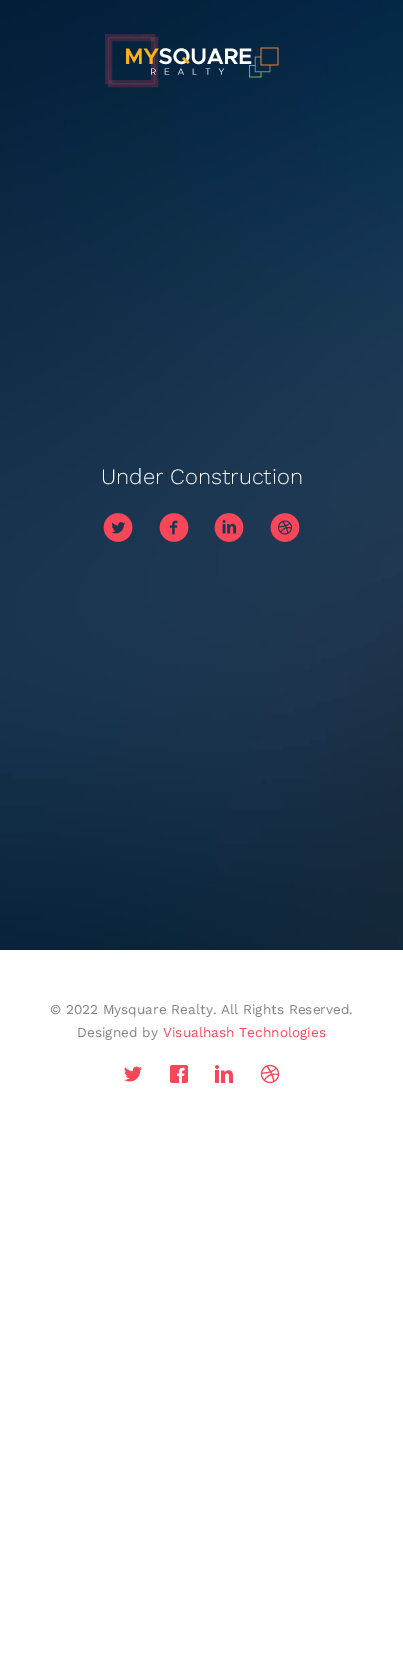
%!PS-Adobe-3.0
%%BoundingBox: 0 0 403 1668
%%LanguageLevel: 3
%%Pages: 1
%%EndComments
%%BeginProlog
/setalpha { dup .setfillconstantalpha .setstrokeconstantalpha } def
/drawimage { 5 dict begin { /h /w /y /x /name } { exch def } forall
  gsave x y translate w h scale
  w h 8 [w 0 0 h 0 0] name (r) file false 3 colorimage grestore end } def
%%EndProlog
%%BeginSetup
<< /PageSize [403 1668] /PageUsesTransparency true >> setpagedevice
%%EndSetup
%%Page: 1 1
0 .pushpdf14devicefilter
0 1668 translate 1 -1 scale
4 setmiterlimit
1 setgray
0 0 403 1668 rectfill
(images/2.raw) 0 0 403 950 drawimage
0.2 setalpha
0.98 0.275 0.349 setrgbcolor
4 setlinewidth
110 39 46 46 rectstroke
107 36 46 46 rectstroke
1 setalpha
(images/1.raw) 126 47 153 31 drawimage
(images/3.raw) 103 513 30 29 drawimage
(images/4.raw) 159 513 30 29 drawimage
(images/5.raw) 214 513 30 29 drawimage
(images/6.raw) 270 513 30 29 drawimage
(images/7.raw) 124 1066 18 16 drawimage
(images/8.raw) 170 1065 18 18 drawimage
(images/9.raw) 215 1065 18 18 drawimage
(images/10.raw) 260 1064 20 20 drawimage
/WorkSans-Light [22 0 0 -22 0 0] selectfont
1 setgray
101 484 moveto (Under Construction) show
/WorkSans-Regular [13.6 0 0 -13.6 0 0] selectfont
0.51 setgray
50 1014 moveto (© 2022 Mysquare Realty. All Rights Reserved.) show
77 1037 moveto (Designed by) show
0.98 0.275 0.349 setrgbcolor
163 1037 moveto (Visualhash Technologies) show
.poppdf14devicefilter showpage
%%EOF
